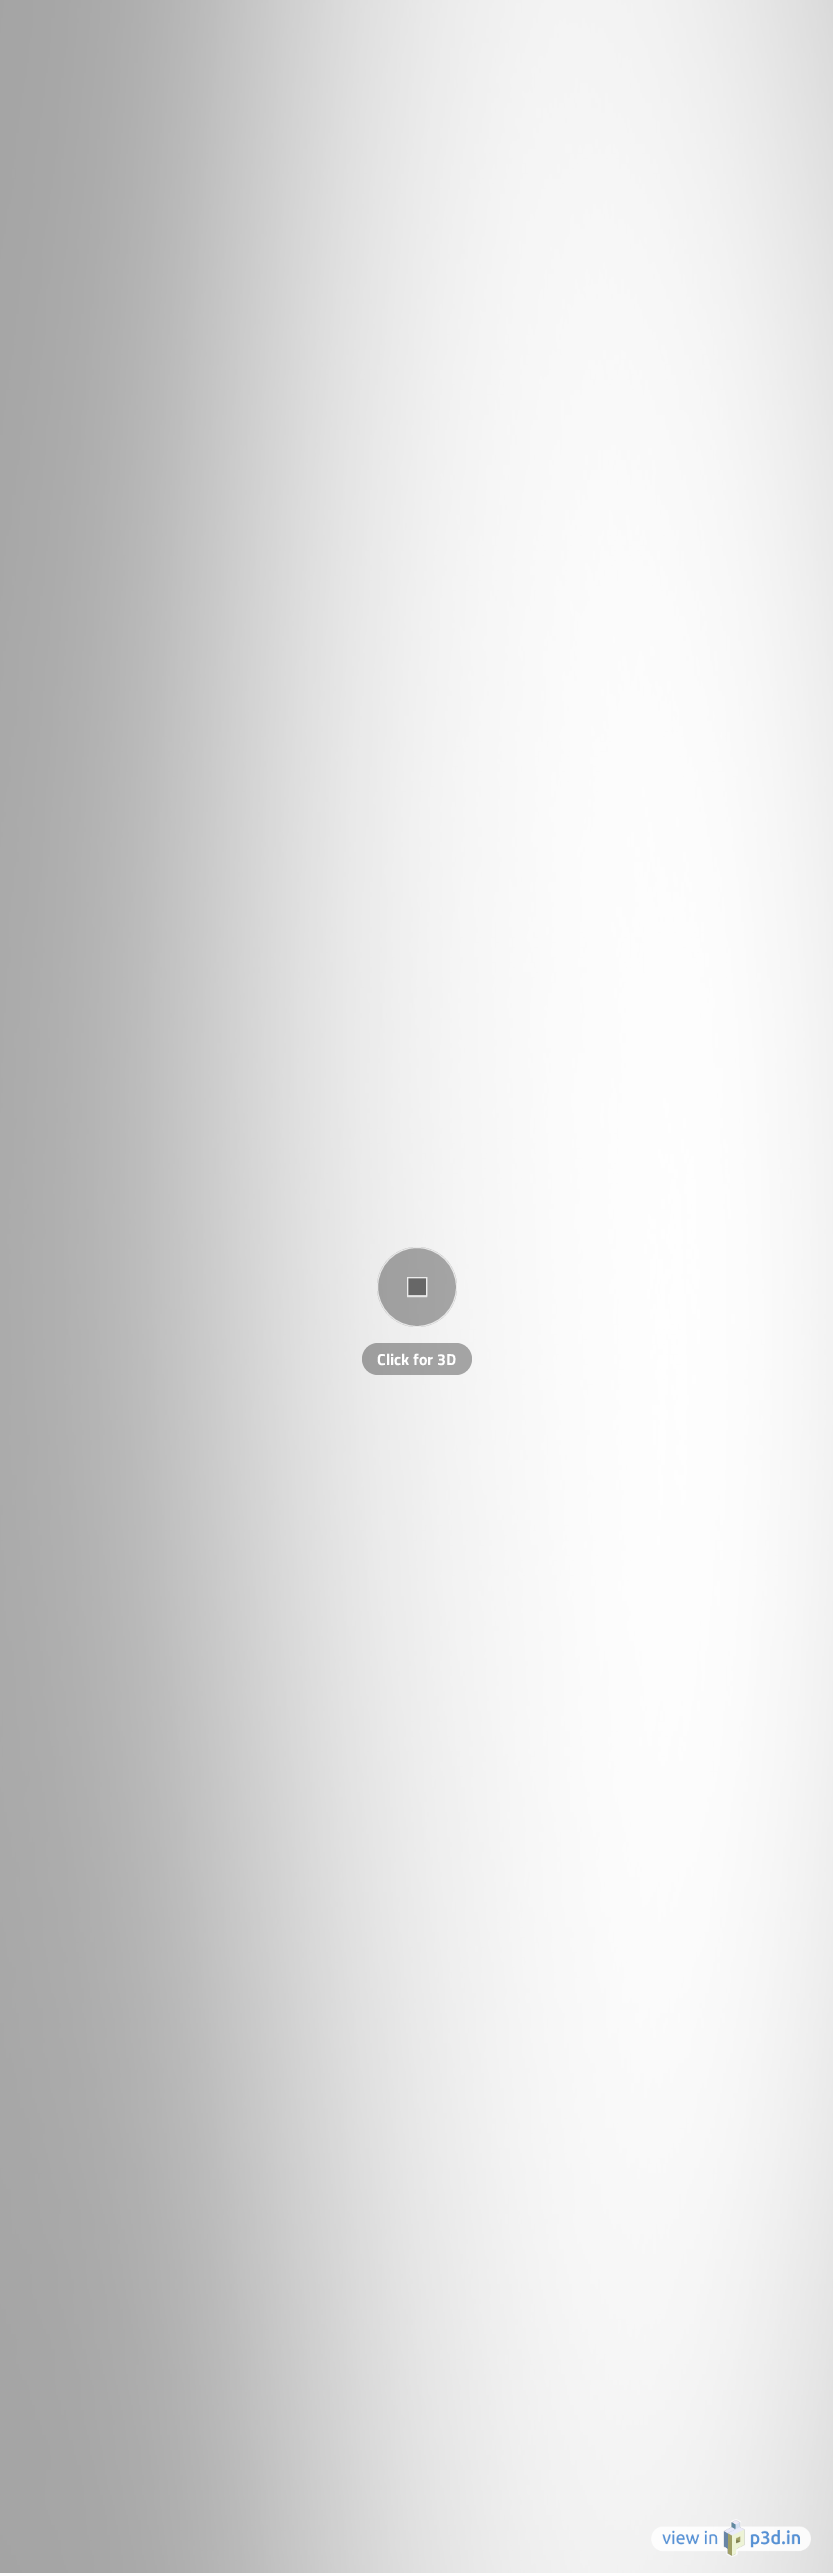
%!PS-Adobe-3.0
%%BoundingBox: 0 0 833 2573
%%LanguageLevel: 3
%%Pages: 1
%%EndComments
%%BeginProlog
/setalpha { dup .setfillconstantalpha .setstrokeconstantalpha } def
/rrect { 5 dict begin { /r /h /w /y /x } { exch def } forall
  x r add y moveto x w add y 2 copy h add r arct x w add y h add x 1 index r arct
  x y h add x y r arct x y 2 copy exch w add exch r arct closepath end } def
/drawimage { 5 dict begin { /h /w /y /x /name } { exch def } forall
  gsave x y translate w h scale
  w h 8 [w 0 0 h 0 0] name (r) file false 3 colorimage grestore end } def
%%EndProlog
%%BeginSetup
<< /PageSize [833 2573] /PageUsesTransparency true >> setpagedevice
%%EndSetup
%%Page: 1 1
0 .pushpdf14devicefilter
0 2573 translate 1 -1 scale
4 setmiterlimit
1 setgray
0 0 833 2573 rectfill
(images/1.raw) 0 0 833 2573 drawimage
0.33 setalpha
0 setgray
newpath 417 1287 40 0 360 arc closepath fill
1 setalpha
0.506 setgray
newpath 407.5 1277.5 moveto 426.5 1277.5 lineto 426.5 1296.5 lineto 407.5 1296.5 lineto closepath gsave fill grestore
0.878 setgray
stroke
0.2 setalpha
0 setgray
407 1277 20 19 rectfill
0.75 setalpha
1 setgray
407.5 1277.5 19 18 rectstroke
newpath 417 1287 39.5 0 360 arc closepath stroke
0.33 setalpha
0 setgray
362 1343 110 32 16 rrect fill
1 setalpha
(images/2.raw) 651 2519 160 38 drawimage
/TitilliumWeb-Bold [16 0 0 -16 0 0] selectfont
1 setgray
377 1365 moveto (Click for 3D) show
.poppdf14devicefilter showpage
%%EOF
